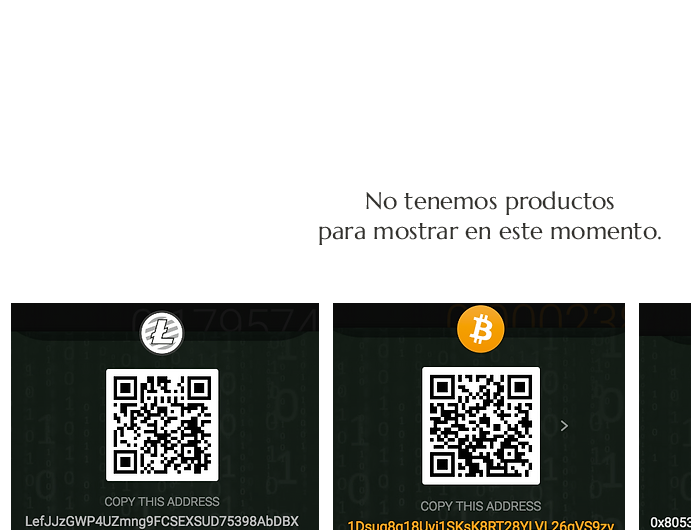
%!PS-Adobe-3.0
%%BoundingBox: 0 0 691 530
%%LanguageLevel: 3
%%Pages: 1
%%EndComments
%%BeginProlog
/drawimage { 5 dict begin { /h /w /y /x /name } { exch def } forall
  gsave x y translate w h scale
  w h 8 [w 0 0 h 0 0] name (r) file false 3 colorimage grestore end } def
%%EndProlog
%%BeginSetup
<< /PageSize [691 530] >> setpagedevice
%%EndSetup
%%Page: 1 1
0 530 translate 1 -1 scale
4 setmiterlimit
1 setgray
0 0 691 530 rectfill
(images/1.raw) 11 303 308 227 drawimage
(images/2.raw) 333 303 292 227 drawimage
(images/3.raw) 639 303 52 227 drawimage
/Marcellus-Regular [24 0 0 -24 0 0] selectfont
0.192 0.188 0.173 setrgbcolor
365 209 moveto (No tenemos productos) show
318 239 moveto (para mostrar en este momento.) show
showpage
%%EOF
